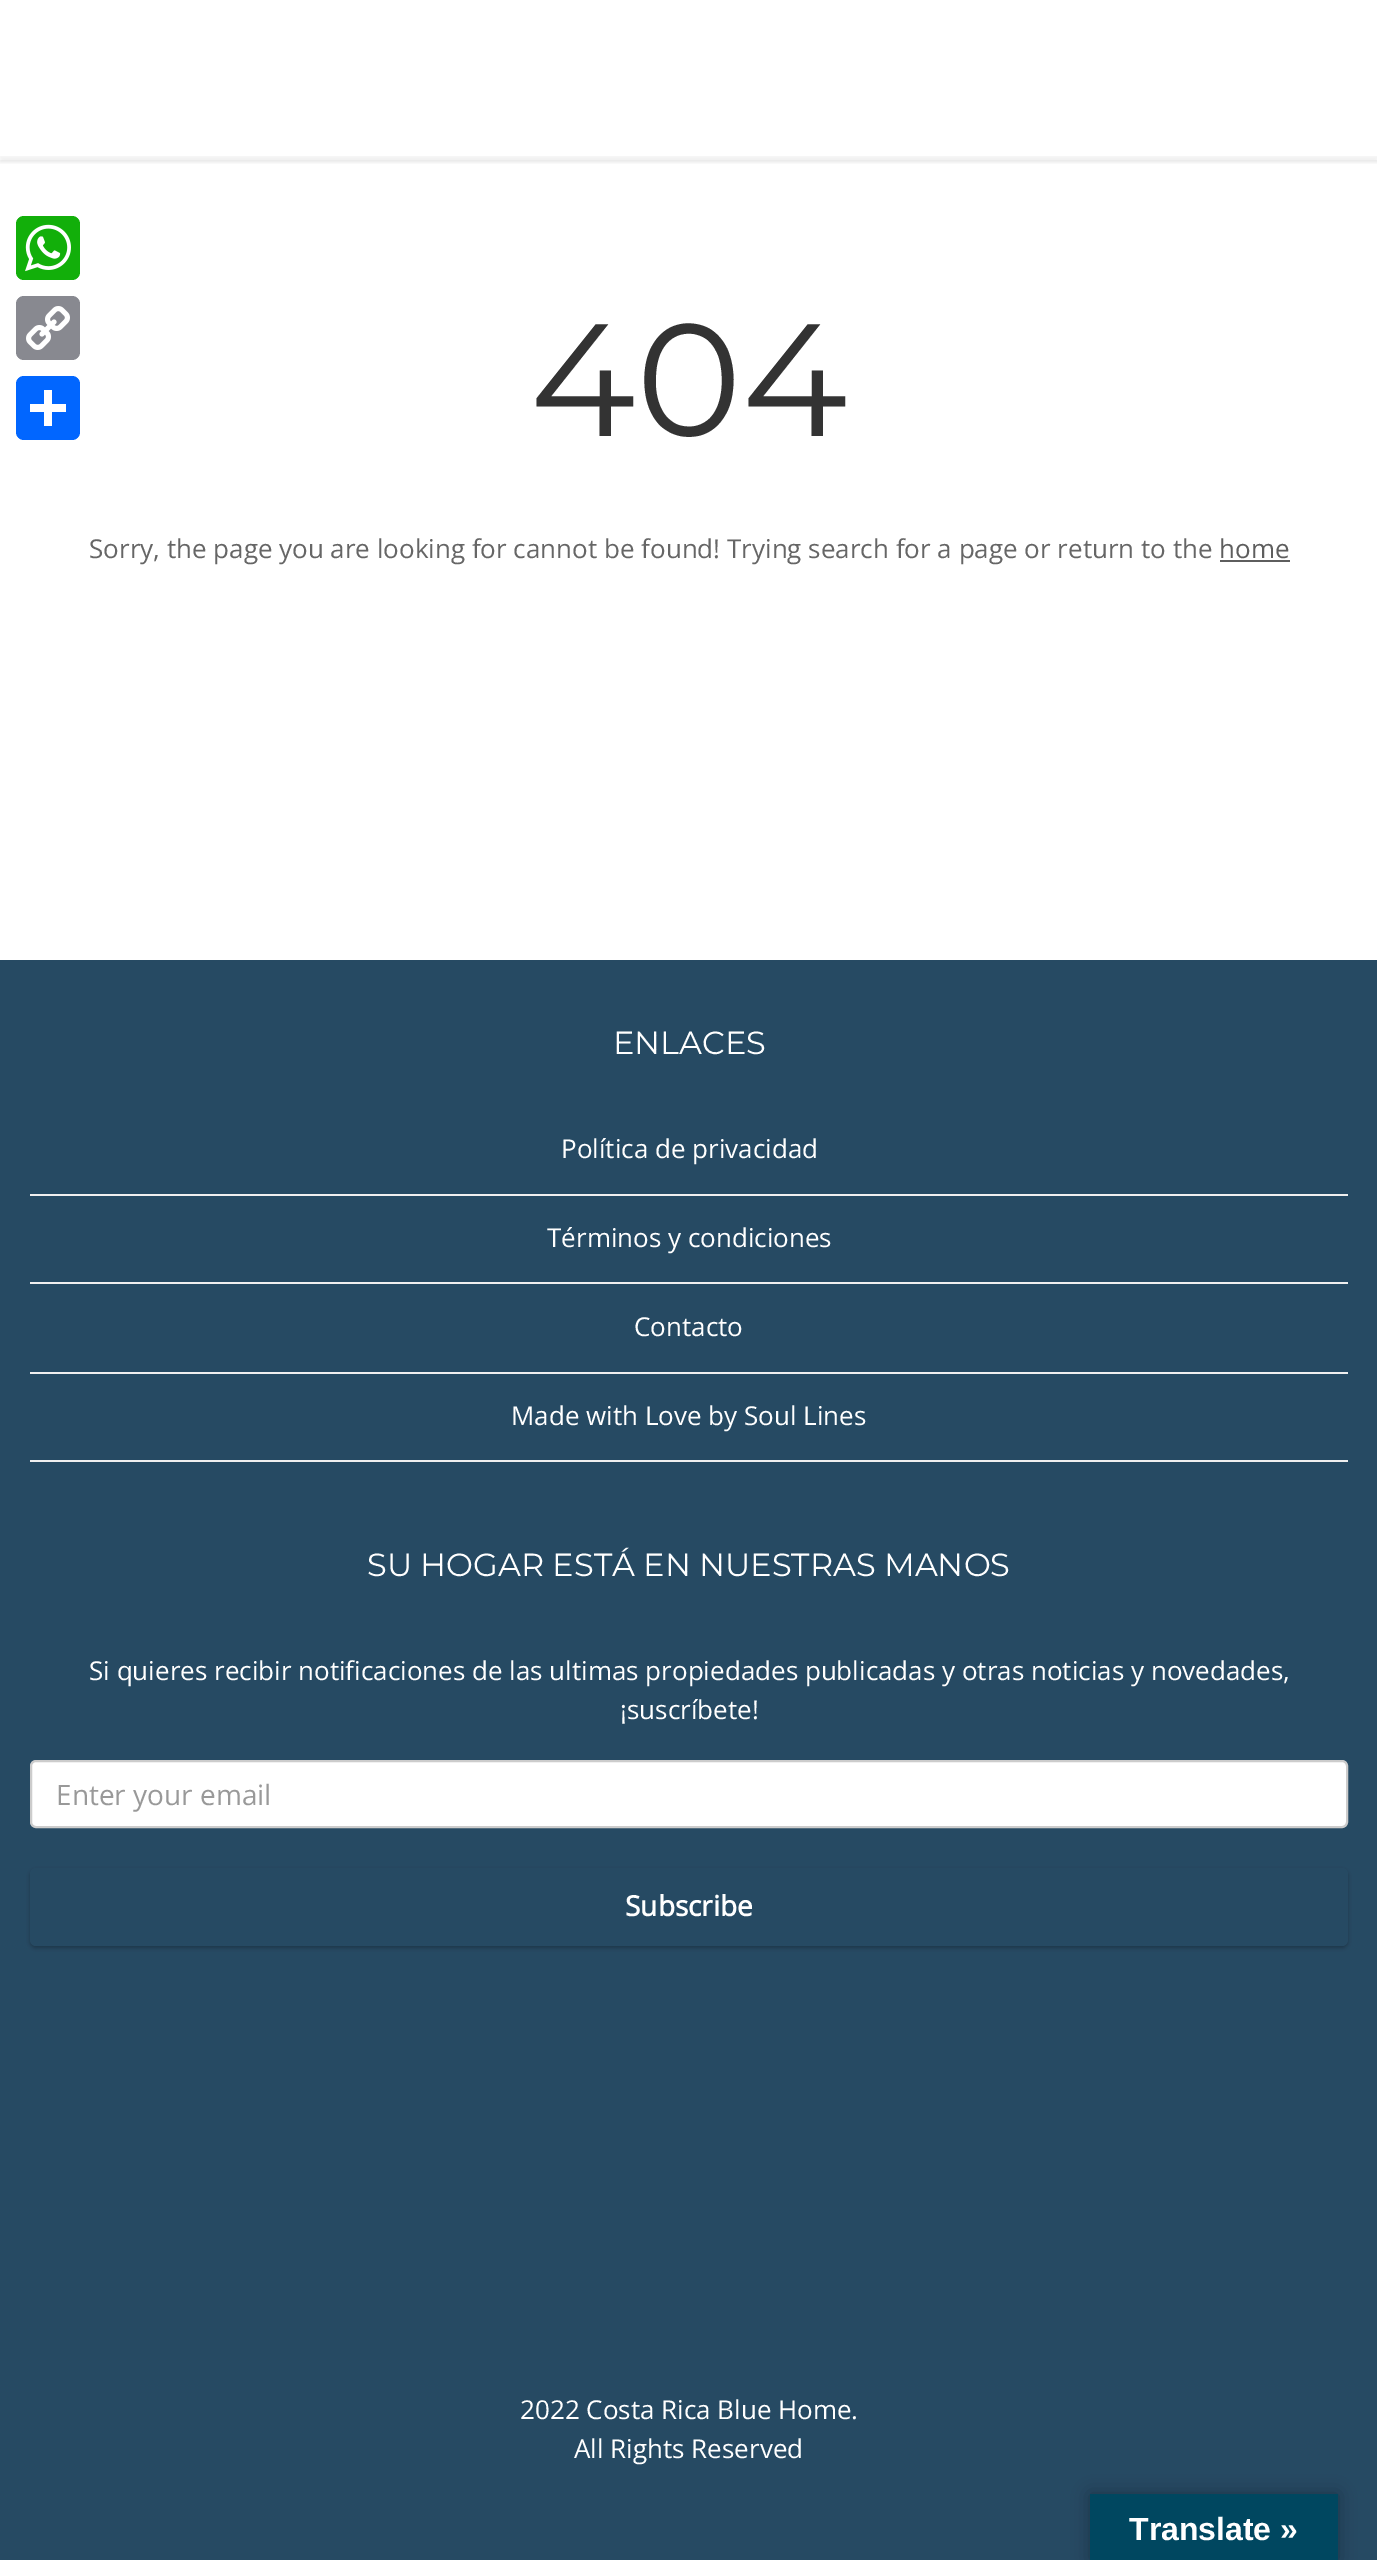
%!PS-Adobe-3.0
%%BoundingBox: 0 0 1377 2560
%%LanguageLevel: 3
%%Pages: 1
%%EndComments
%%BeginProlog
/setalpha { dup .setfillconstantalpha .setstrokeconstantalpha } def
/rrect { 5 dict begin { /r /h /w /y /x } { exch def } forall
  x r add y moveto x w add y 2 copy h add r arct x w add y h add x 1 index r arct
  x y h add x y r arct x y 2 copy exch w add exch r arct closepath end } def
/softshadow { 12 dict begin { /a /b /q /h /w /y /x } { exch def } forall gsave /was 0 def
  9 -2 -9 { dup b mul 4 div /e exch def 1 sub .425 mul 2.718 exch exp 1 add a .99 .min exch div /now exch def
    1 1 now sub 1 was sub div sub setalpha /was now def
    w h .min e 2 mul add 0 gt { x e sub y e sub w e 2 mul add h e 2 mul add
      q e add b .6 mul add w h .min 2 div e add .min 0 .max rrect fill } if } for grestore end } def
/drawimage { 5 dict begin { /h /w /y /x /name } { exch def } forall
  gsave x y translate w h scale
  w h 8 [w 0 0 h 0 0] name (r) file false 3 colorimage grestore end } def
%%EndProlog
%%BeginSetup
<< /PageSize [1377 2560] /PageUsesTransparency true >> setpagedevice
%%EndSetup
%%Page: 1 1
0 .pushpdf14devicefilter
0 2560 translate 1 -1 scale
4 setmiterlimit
1 setgray
0 0 1377 2560 rectfill
0.149 0.29 0.388 setrgbcolor
0 960 1377 1600 rectfill
gsave
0 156 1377 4 rectclip
0 setgray
0 156 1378 800 0 2 0.05 softshadow
grestore
0.071 0.686 0.039 setrgbcolor
16 216 64 64 8 rrect fill
(images/1.raw) 25 224 46 48 drawimage
0.533 0.537 0.565 setrgbcolor
16 296 64 64 8 rrect fill
(images/2.raw) 26 306 44 44 drawimage
0.004 0.4 1 setrgbcolor
16 376 64 64 8 rrect fill
1 setgray
44 390 8 36 rectfill
30 404 36 8 rectfill
gsave
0 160 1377 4 rectclip
0 setgray
0 2 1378 160 0 2 0.1 softshadow
grestore
0.369 setgray
1220 560 70 2 rectfill
0.937 setgray
30 1194 1318 2 rectfill
30 1282 1318 2 rectfill
30 1372 1318 2 rectfill
30 1460 1318 2 rectfill
1 setgray
31 1761 1316 66 5 rrect gsave fill grestore
0.8 setgray
2 setlinewidth
stroke
0 setgray
30 1870 1318 78 6 2 0.25 softshadow
0.149 0.29 0.388 setrgbcolor
30 1868 1318 78 6 rrect fill
0 setgray
1090 2494 248 66 0 9 0.3 softshadow
0 0.278 0.376 setrgbcolor
1090 2494 248 66 rectfill
/Montserrat-Thin [160 0 0 -160 0 0] selectfont
0.2 setgray
530 436 moveto (404) show
/OpenSans-Regular [26 0 0 -26 0 0] selectfont
0.4 setgray
89 558 moveto (Sorry, the page you are looking for cannot be found! Trying search for a page or return to the) show
0.369 setgray
1219 558 moveto (home) show
/Montserrat-Thin [32 0 0 -32 0 0] selectfont
1 setgray
613 1054 moveto (ENLACES) show
/OpenSans-Regular [26 0 0 -26 0 0] selectfont
561 1158 moveto (Política de privacidad) show
547 1247 moveto (Términos y condiciones) show
634 1336 moveto (Contacto) show
511 1425 moveto (Made with Love by Soul Lines) show
/Montserrat-Thin [32 0 0 -32 0 0] selectfont
367 1576 moveto (SU HOGAR ESTÁ EN NUESTRAS MANOS) show
/OpenSans-Regular [26 0 0 -26 0 0] selectfont
89 1680 moveto (Si quieres recibir notificaciones de las ultimas propiedades publicadas y otras noticias y novedades,) show
620 1719 moveto (¡suscríbete!) show
/OpenSans-Regular [28 0 0 -28 0 0] selectfont
0.6 setgray
56 1805 moveto (Enter your email) show
/OpenSans-Bold [28 0 0 -28 0 0] selectfont
1 setgray
625 1916 moveto (Subscribe) show
/OpenSans-Regular [26 0 0 -26 0 0] selectfont
520 2419 moveto (2022 Costa Rica Blue Home.) show
574 2458 moveto (All Rights Reserved) show
/LiberationSans-Bold [32 0 0 -32 0 0] selectfont
1129 2540 moveto (Translate ») show
.poppdf14devicefilter showpage
%%EOF
